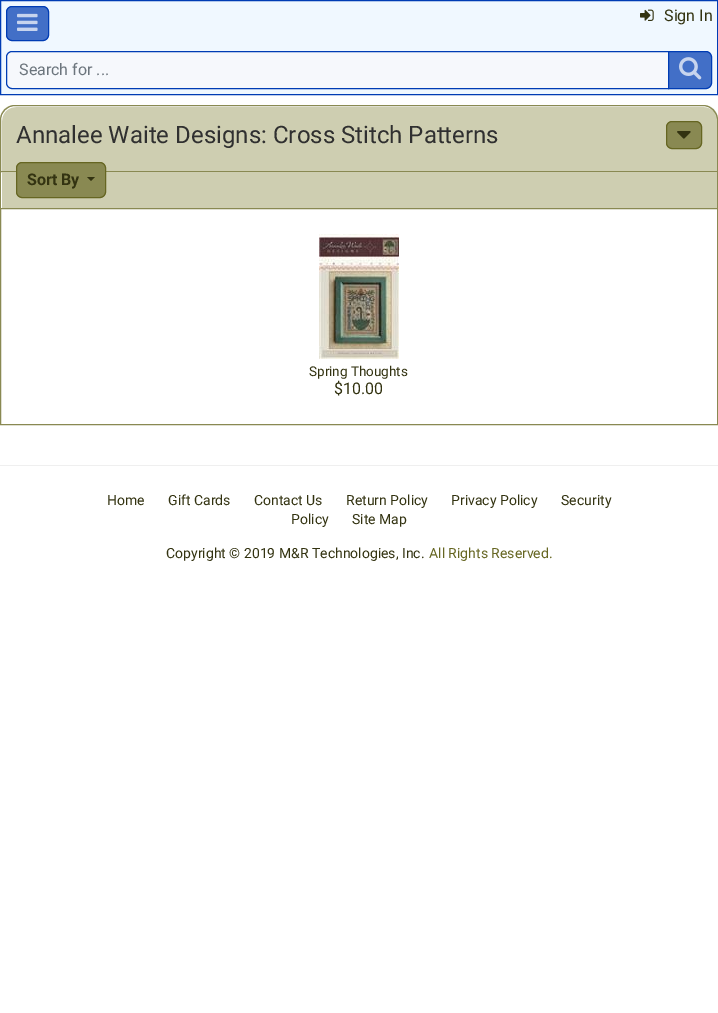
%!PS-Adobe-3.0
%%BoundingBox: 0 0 718 1013
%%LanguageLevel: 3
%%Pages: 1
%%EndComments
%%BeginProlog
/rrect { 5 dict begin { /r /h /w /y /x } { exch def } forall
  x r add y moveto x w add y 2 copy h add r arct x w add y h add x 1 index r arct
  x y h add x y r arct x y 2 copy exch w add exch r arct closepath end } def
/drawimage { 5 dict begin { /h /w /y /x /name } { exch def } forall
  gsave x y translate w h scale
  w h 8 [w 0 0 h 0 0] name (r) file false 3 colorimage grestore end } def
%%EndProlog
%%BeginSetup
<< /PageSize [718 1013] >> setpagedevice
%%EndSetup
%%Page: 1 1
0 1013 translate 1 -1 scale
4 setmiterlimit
1 setgray
0 0 718 1013 rectfill
0.941 0.973 1 setrgbcolor
newpath 0.5 0.5 moveto 717.5 0.5 lineto 717.5 94.5 lineto 0.5 94.5 lineto closepath gsave fill grestore
0 0.235 0.706 setrgbcolor
stroke
0.259 0.435 0.78 setrgbcolor
6.5 6.5 42 34 5.5 rrect gsave fill grestore
0 0.235 0.706 setrgbcolor
stroke
(images/1.raw) 17 13 21 18 drawimage
(images/2.raw) 640 9 14 12 drawimage
0.965 0.973 0.988 setrgbcolor
newpath 12 51.5 moveto 668.5 51.5 lineto 668.5 88.5 lineto 12 88.5 lineto 9 88.5 6.5 86 6.5 83 curveto 6.5 57 lineto 6.5 54 9 51.5 12 51.5 curveto closepath gsave fill grestore
0 0.235 0.706 setrgbcolor
stroke
0.259 0.435 0.78 setrgbcolor
newpath 668.5 51.5 moveto 706 51.5 lineto 709 51.5 711.5 54 711.5 57 curveto 711.5 83 lineto 711.5 86 709 88.5 706 88.5 curveto 668.5 88.5 lineto closepath gsave fill grestore
0 0.235 0.706 setrgbcolor
stroke
(images/3.raw) 679 57 23 23 drawimage
0.808 0.808 0.694 setrgbcolor
newpath 15 105 moveto 703 105 lineto 711.5 105 718 111.5 718 120 curveto 718 172 lineto 0 172 lineto 0 120 lineto 0 111.5 6.5 105 15 105 curveto closepath fill
1 setgray
newpath 16 107 moveto 704 107 lineto 707 107 710 108 712 110 curveto 710 107 707 106 703 106 curveto 15 106 lineto 7 106 1 112 1 120 curveto 1 171 lineto 2 171 lineto 2 121 lineto 2 113 8 107 16 107 curveto closepath fill
0.537 0.537 0.322 setrgbcolor
newpath 15 105.5 moveto 703 105.5 lineto 711 105.5 717.5 112 717.5 120 curveto 717.5 171.5 lineto 0.5 171.5 lineto 0.5 120 lineto 0.5 112 7 105.5 15 105.5 curveto closepath stroke
666.5 121.5 35 27 5.5 rrect gsave fill grestore
0.4 0.4 0.133 setrgbcolor
stroke
(images/4.raw) 677 131 14 8 drawimage
0.808 0.808 0.694 setrgbcolor
2 172 715 36 rectfill
0.537 0.537 0.322 setrgbcolor
717 172 1 39 rectfill
0 172 1 39 rectfill
16.5 162.5 89 35 5.5 rrect gsave fill grestore
0.4 0.4 0.133 setrgbcolor
stroke
0.2 0.2 0.067 setrgbcolor
newpath 87 177 moveto 95 177 lineto 91 181 lineto closepath fill
0.537 0.537 0.322 setrgbcolor
0.5 208.5 717 216 rectstroke
(images/5.raw) 319 234 80 125 drawimage
0.937 setgray
0 465 718 1 rectfill
/Roboto-Regular [16 0 0 -16 0 0] selectfont
0.2 0.2 0.067 setrgbcolor
664 21 moveto (Sign In) show
0.424 0.459 0.49 setrgbcolor
19 75 moveto (Search for ...) show
/Roboto-Regular [24 0 0 -24 0 0] selectfont
0.188 setgray
16 143 moveto (Annalee Waite Designs: Cross Stitch Patterns) show
/Roboto-Bold [16 0 0 -16 0 0] selectfont
0.2 0.2 0.067 setrgbcolor
27 185 moveto (Sort By) show
/Roboto-Regular [13.5 0 0 -13.5 0 0] selectfont
309 376 moveto (Spring Thoughts) show
/Roboto-Regular [16 0 0 -16 0 0] selectfont
334 394 moveto ($10.00) show
/Roboto-Regular [14 0 0 -14 0 0] selectfont
107 505 moveto (Home) show
168 505 moveto (Gift Cards) show
254 505 moveto (Contact Us) show
346 505 moveto (Return Policy) show
451 505 moveto (Privacy Policy) show
561 505 moveto (Security) show
291 524 moveto (Policy) show
352 524 moveto (Site Map) show
166 558 moveto (Copyright © 2019 M&R Technologies, Inc.) show
0.4 0.4 0.133 setrgbcolor
429 558 moveto (All Rights Reserved.) show
showpage
%%EOF
